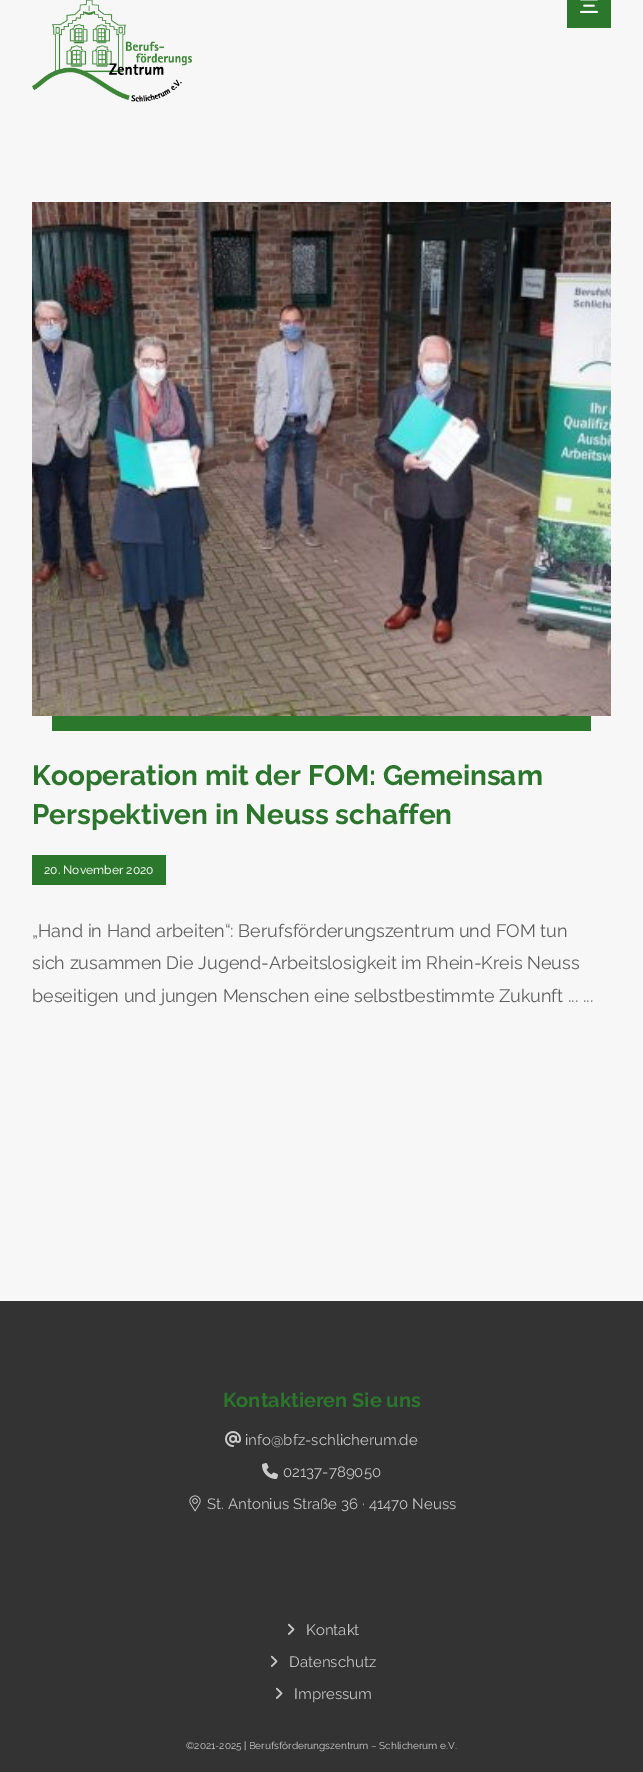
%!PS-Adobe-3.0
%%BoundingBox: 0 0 643 1772
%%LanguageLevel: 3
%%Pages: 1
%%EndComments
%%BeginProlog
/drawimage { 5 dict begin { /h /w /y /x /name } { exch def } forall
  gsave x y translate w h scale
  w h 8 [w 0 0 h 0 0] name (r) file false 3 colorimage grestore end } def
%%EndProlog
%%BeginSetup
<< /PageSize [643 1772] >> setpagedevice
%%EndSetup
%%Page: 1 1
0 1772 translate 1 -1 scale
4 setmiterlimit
0.969 setgray
0 0 643 1772 rectfill
(images/1.raw) 32 0 160 102 drawimage
0.169 0.471 0.176 setrgbcolor
567 0 44 28 rectfill
(images/2.raw) 580 0 18 13 drawimage
52 716 539 15 rectfill
(images/3.raw) 32 202 579 514 drawimage
32 855 134 30 rectfill
0.2 setgray
0 1301 643 471 rectfill
(images/4.raw) 225 1431 16 16 drawimage
(images/5.raw) 262 1463 16 16 drawimage
(images/6.raw) 189 1495 12 17 drawimage
(images/7.raw) 287 1623 8 12 drawimage
(images/7.raw) 270 1655 8 12 drawimage
(images/7.raw) 275 1687 8 12 drawimage
/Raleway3-Thin [28 0 0 -28 0 0] selectfont
0.169 0.463 0.173 setrgbcolor
32 785 moveto (Kooperation mit der FOM: Gemeinsam) show
32 824 moveto (Perspektiven in Neuss schaffen) show
/Raleway-Thin [12 0 0 -12 0 0] selectfont
0.918 0.949 0.918 setrgbcolor
44 874 moveto (20. November 2020) show
/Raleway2-Thin [18 0 0 -18 0 0] selectfont
0.376 setgray
32 937 moveto („Hand in Hand arbeiten“: Berufsförderungszentrum und FOM tun) show
32 969 moveto (sich zusammen Die Jugend-Arbeitslosigkeit im Rhein-Kreis Neuss) show
32 1002 moveto (beseitigen und jungen Menschen eine selbstbestimmte Zukunft ... ...) show
/Raleway3-Thin [20 0 0 -20 0 0] selectfont
0.169 0.463 0.173 setrgbcolor
223 1407 moveto (Kontaktieren Sie uns) show
/Raleway2-Thin [15 0 0 -15 0 0] selectfont
0.776 setgray
245 1445 moveto (info@bfz-schlicherum.de) show
283 1477 moveto (02137-789050) show
207 1509 moveto (St. Antonius Straße 36 · 41470 Neuss) show
306 1635 moveto (Kontakt) show
289 1667 moveto (Datenschutz) show
294 1699 moveto (Impressum) show
/Raleway2-Thin [10 0 0 -10 0 0] selectfont
0.8 setgray
186 1749 moveto (©2021-2025 | Berufsförderungszentrum – Schlicherum e.V.) show
showpage
%%EOF
